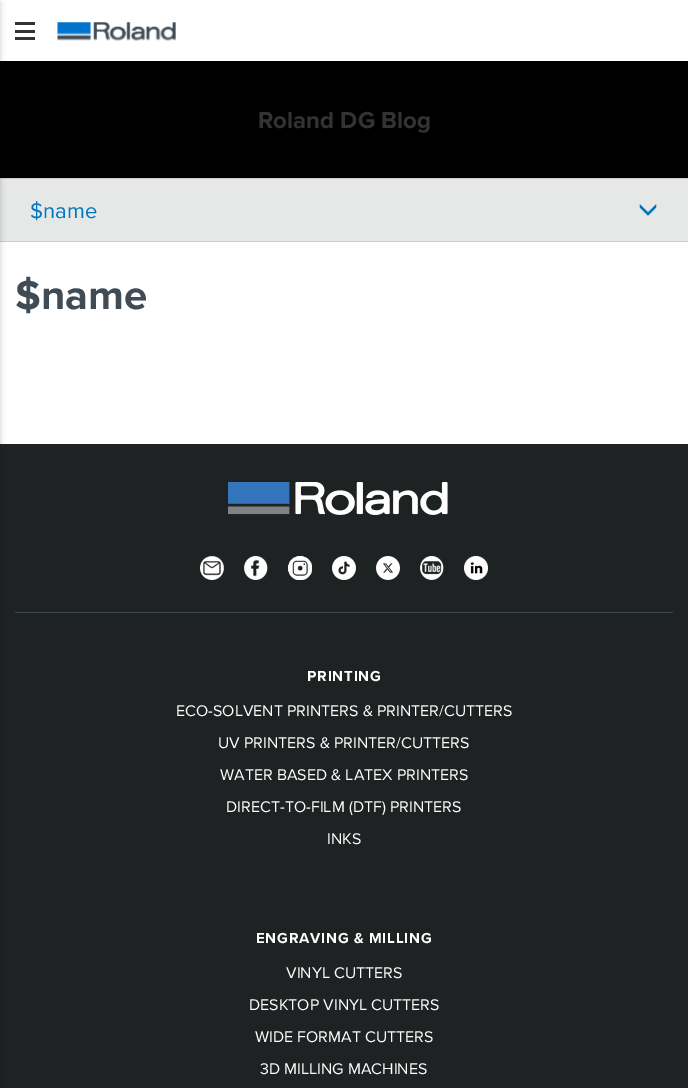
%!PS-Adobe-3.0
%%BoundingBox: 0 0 688 1088
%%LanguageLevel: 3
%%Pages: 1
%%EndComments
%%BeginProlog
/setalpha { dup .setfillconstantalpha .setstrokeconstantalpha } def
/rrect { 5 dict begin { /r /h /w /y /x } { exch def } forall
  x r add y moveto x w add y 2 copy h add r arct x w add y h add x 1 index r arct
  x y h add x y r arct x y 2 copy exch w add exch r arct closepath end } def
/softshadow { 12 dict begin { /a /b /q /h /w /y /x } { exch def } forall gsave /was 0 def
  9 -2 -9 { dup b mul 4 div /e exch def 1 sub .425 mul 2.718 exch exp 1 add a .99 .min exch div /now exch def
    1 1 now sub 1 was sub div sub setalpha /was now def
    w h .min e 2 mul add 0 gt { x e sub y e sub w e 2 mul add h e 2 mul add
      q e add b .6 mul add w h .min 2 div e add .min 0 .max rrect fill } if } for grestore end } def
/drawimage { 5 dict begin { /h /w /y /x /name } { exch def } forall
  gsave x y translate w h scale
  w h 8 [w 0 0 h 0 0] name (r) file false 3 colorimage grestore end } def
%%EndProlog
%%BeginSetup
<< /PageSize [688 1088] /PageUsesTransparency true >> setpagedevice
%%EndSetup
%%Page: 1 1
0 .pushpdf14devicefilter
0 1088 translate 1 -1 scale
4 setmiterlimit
1 setgray
0 0 688 1088 rectfill
0 setgray
0 61 688 117 rectfill
0.8 setgray
0 178 688 1 rectfill
0 241 688 1 rectfill
0.902 0.906 0.906 setrgbcolor
0 179 688 62 rectfill
gsave newpath 0 444 moveto 688 444 lineto 688 1088 lineto 0 1088 lineto closepath clip newpath
<< /ShadingType 2 /ColorSpace /DeviceRGB /Coords [344 444 344 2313] /Extend [true true] /Function << /FunctionType 3 /Domain [0 1] /Functions [<< /FunctionType 2 /Domain [0 1] /C0 [0.122 0.133 0.137] /C1 [0.122 0.133 0.137] /N 1 >> << /FunctionType 2 /Domain [0 1] /C0 [0.122 0.133 0.137] /C1 [0.102 0.118 0.122] /N 1 >> << /FunctionType 2 /Domain [0 1] /C0 [0.102 0.118 0.122] /C1 [0.102 0.118 0.122] /N 1 >>] /Bounds [0.8 0.9] /Encode [0 1 0 1 0 1] >> >> shfill grestore
0 setgray
-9 3 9 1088 0 3 0.2 softshadow
0.2 setgray
15 30 20 3 rectfill
15 22 20 3 rectfill
15 37 20 3 rectfill
(images/1.raw) 57 22 119 19 drawimage
(images/2.raw) 639 204 18 12 drawimage
(images/3.raw) 228 482 220 33 drawimage
(images/4.raw) 200 556 24 24 drawimage
(images/5.raw) 244 556 24 24 drawimage
(images/6.raw) 288 556 24 24 drawimage
(images/7.raw) 332 556 24 24 drawimage
(images/8.raw) 376 556 24 24 drawimage
(images/9.raw) 420 556 24 24 drawimage
(images/10.raw) 464 556 24 24 drawimage
0.224 0.29 0.31 setrgbcolor
15 612 658 1 rectfill
/ProximaNova-Bold [24 0 0 -24 0 0] selectfont
0.2 setgray
258 128 moveto (Roland DG Blog) show
/ProximaNova-Regular [22 0 0 -22 0 0] selectfont
0 0.463 0.745 setrgbcolor
30 218 moveto ($name) show
/ProximaNova-Bold [42 0 0 -42 0 0] selectfont
0.247 0.294 0.333 setrgbcolor
15 309 moveto ($name) show
/ProximaNova-Bold [15 0 0 -15 0 0] selectfont
1 setgray
307 681 moveto 0.75 0 (PRINTING) ashow
/ProximaNova-Regular [16 0 0 -16 0 0] selectfont
176 716 moveto (ECO-SOLVENT PRINTERS & PRINTER/CUTTERS) show
218 748 moveto (UV PRINTERS & PRINTER/CUTTERS) show
220 780 moveto (WATER BASED & LATEX PRINTERS) show
226 812 moveto (DIRECT-TO-FILM \(DTF\) PRINTERS) show
327 844 moveto (INKS) show
/ProximaNova-Bold [15 0 0 -15 0 0] selectfont
256 943 moveto 0.75 0 (ENGRAVING & MILLING) ashow
/ProximaNova-Regular [16 0 0 -16 0 0] selectfont
286 978 moveto (VINYL CUTTERS) show
249 1010 moveto (DESKTOP VINYL CUTTERS) show
255 1042 moveto (WIDE FORMAT CUTTERS) show
260 1074 moveto (3D MILLING MACHINES) show
.poppdf14devicefilter showpage
%%EOF
